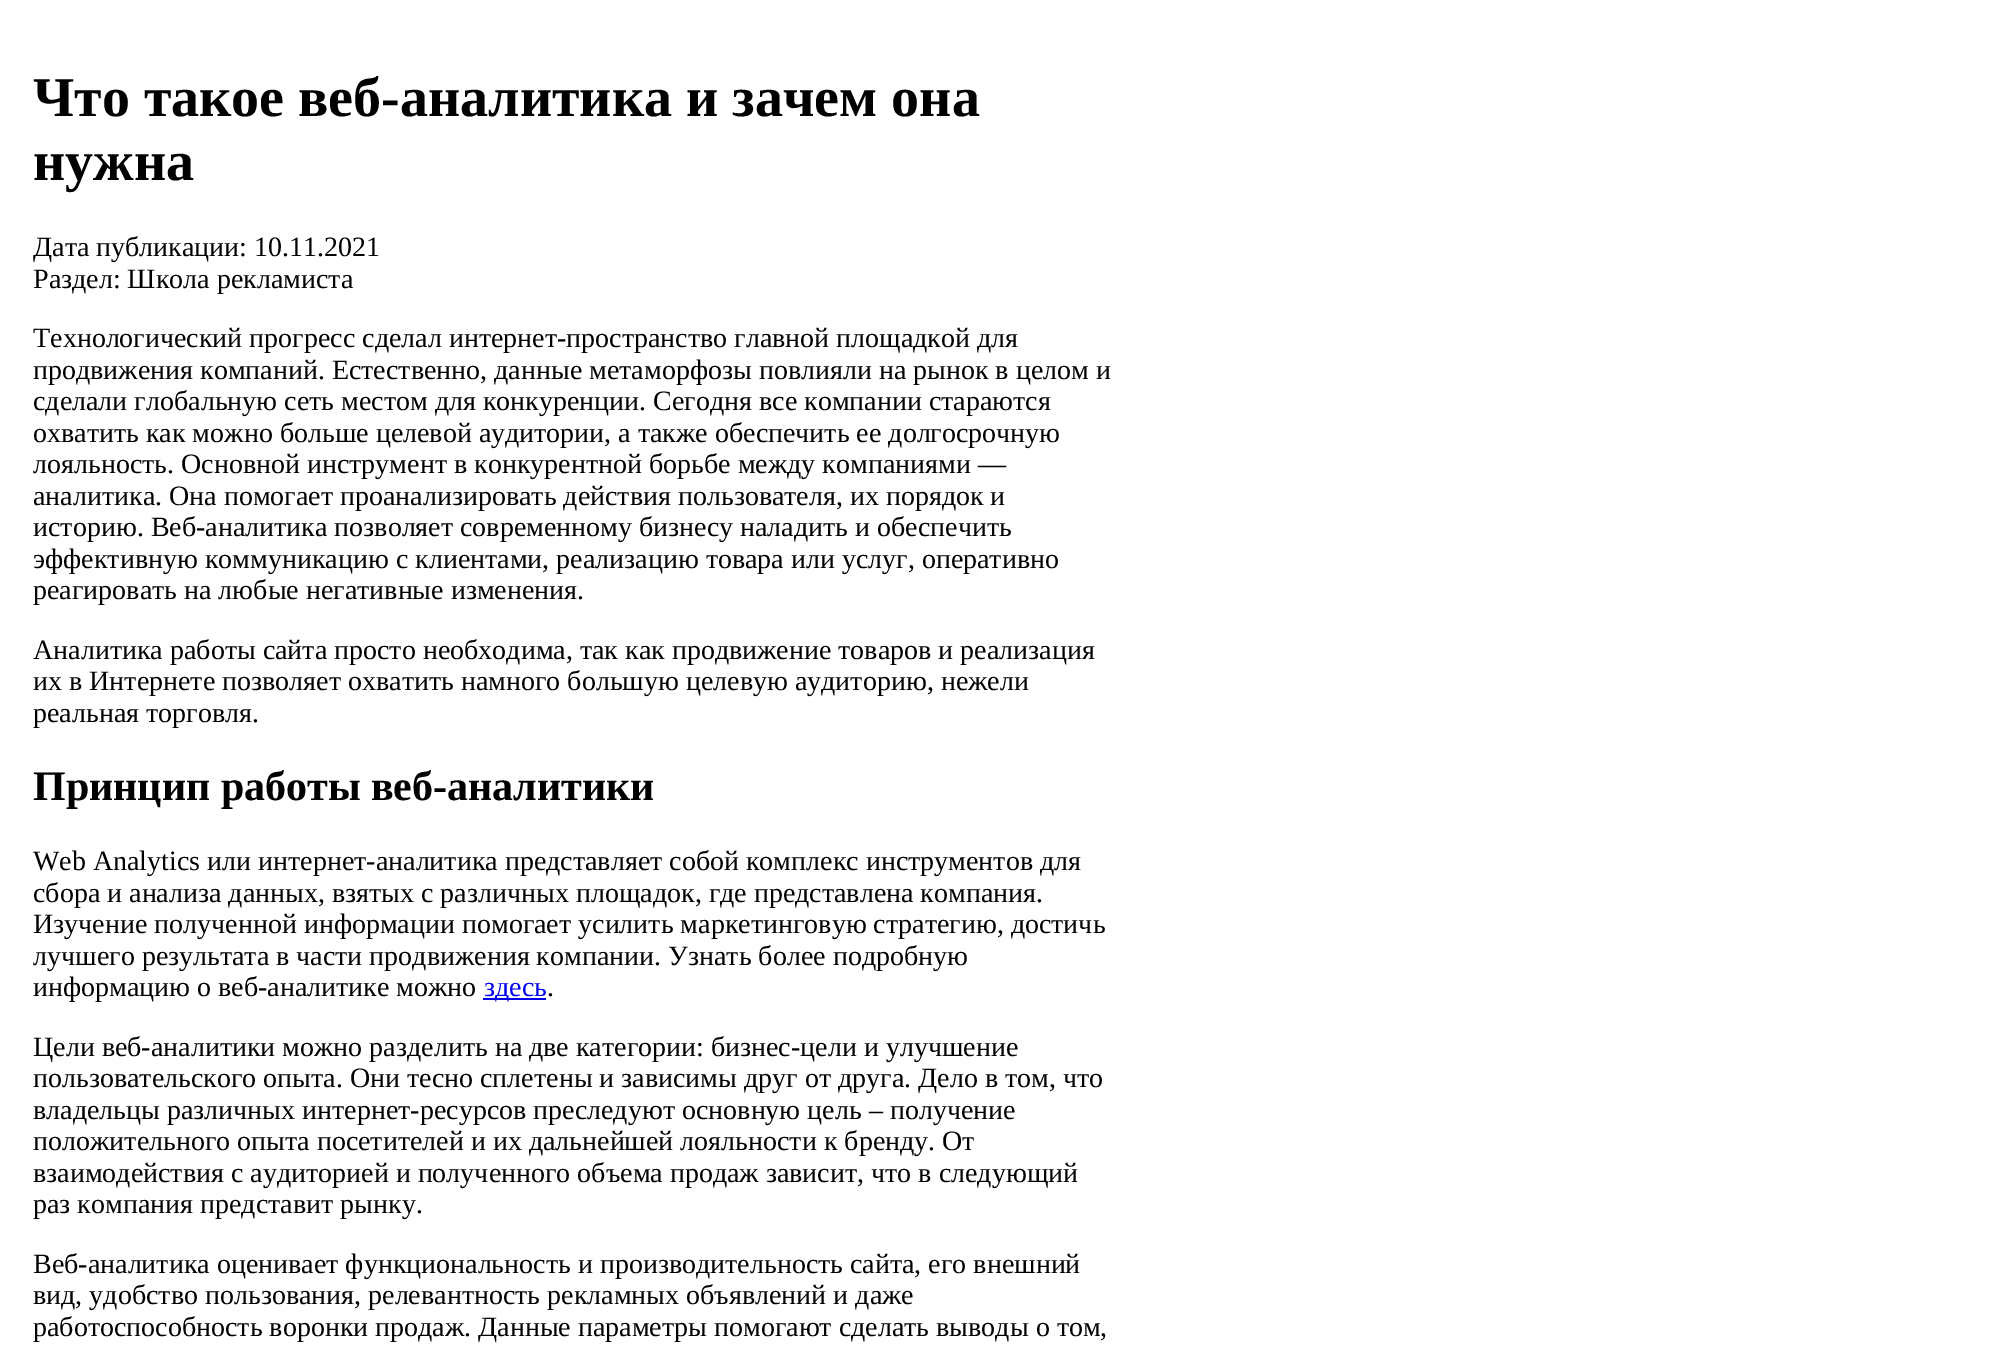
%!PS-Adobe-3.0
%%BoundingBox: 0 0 2004 1360
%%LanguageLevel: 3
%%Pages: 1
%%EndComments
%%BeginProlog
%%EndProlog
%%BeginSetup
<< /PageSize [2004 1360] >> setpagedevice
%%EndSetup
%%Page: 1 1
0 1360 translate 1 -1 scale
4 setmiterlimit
1 setgray
0 0 2004 1360 rectfill
0 0 0.933 setrgbcolor
483 998 63 2 rectfill
/LiberationSerif-Bold [56 0 0 -56 0 0] selectfont
0 setgray
33 116 moveto (Что такое веб-аналитика и зачем она) show
33 180 moveto (нужна) show
/LiberationSerif-Regular [28 0 0 -28 0 0] selectfont
33 256 moveto (Дата публикации: 10.11.2021) show
33 288 moveto (Раздел: Школа рекламиста) show
33 347 moveto (Технологический прогресс сделал интернет-пространство главной площадкой для) show
33 379 moveto (продвижения компаний. Естественно, данные метаморфозы повлияли на рынок в целом и) show
33 410 moveto (сделали глобальную сеть местом для конкуренции. Сегодня все компании стараются) show
33 442 moveto (охватить как можно больше целевой аудитории, а также обеспечить ее долгосрочную) show
33 473 moveto (лояльность. Основной инструмент в конкурентной борьбе между компаниями —) show
33 505 moveto (аналитика. Она помогает проанализировать действия пользователя, их порядок и) show
33 536 moveto (историю. Веб-аналитика позволяет современному бизнесу наладить и обеспечить) show
33 568 moveto (эффективную коммуникацию с клиентами, реализацию товара или услуг, оперативно) show
33 599 moveto (реагировать на любые негативные изменения.) show
33 659 moveto (Аналитика работы сайта просто необходима, так как продвижение товаров и реализация) show
33 690 moveto (их в Интернете позволяет охватить намного большую целевую аудиторию, нежели) show
33 722 moveto (реальная торговля.) show
/LiberationSerif-Bold [42 0 0 -42 0 0] selectfont
33 800 moveto (Принцип работы веб-аналитики) show
/LiberationSerif-Regular [28 0 0 -28 0 0] selectfont
33 870 moveto (Web Analytics или интернет-аналитика представляет собой комплекс инструментов для) show
33 902 moveto (сбора и анализа данных, взятых с различных площадок, где представлена компания.) show
33 933 moveto (Изучение полученной информации помогает усилить маркетинговую стратегию, достичь) show
33 965 moveto (лучшего результата в части продвижения компании. Узнать более подробную) show
33 996 moveto (информацию о веб-аналитике можно) show
0 0 0.933 setrgbcolor
484 996 moveto (здесь) show
0 setgray
547 996 moveto (.) show
33 1056 moveto (Цели веб-аналитики можно разделить на две категории: бизнес-цели и улучшение) show
33 1087 moveto (пользовательского опыта. Они тесно сплетены и зависимы друг от друга. Дело в том, что) show
33 1119 moveto (владельцы различных интернет-ресурсов преследуют основную цель – получение) show
33 1150 moveto (положительного опыта посетителей и их дальнейшей лояльности к бренду. От) show
33 1182 moveto (взаимодействия с аудиторией и полученного объема продаж зависит, что в следующий) show
33 1213 moveto (раз компания представит рынку.) show
33 1273 moveto (Веб-аналитика оценивает функциональность и производительность сайта, его внешний) show
33 1304 moveto (вид, удобство пользования, релевантность рекламных объявлений и даже) show
33 1336 moveto (работоспособность воронки продаж. Данные параметры помогают сделать выводы о том,) show
showpage
%%EOF
